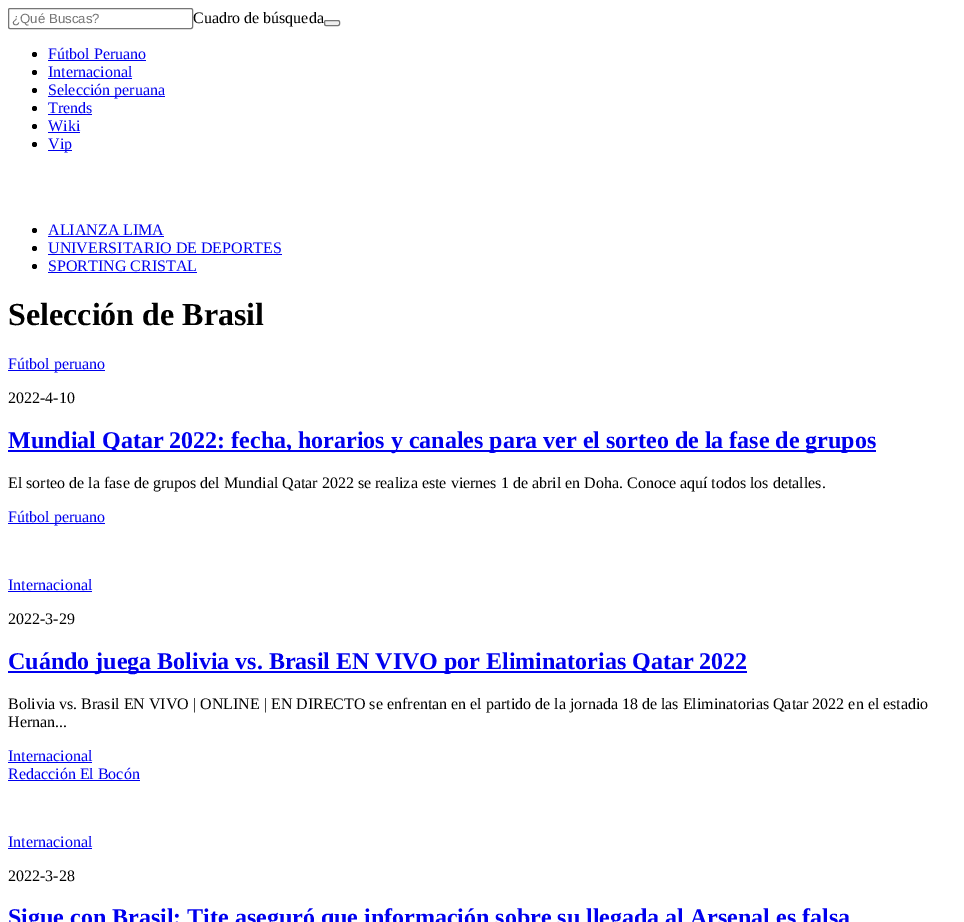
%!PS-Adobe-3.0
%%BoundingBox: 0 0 964 922
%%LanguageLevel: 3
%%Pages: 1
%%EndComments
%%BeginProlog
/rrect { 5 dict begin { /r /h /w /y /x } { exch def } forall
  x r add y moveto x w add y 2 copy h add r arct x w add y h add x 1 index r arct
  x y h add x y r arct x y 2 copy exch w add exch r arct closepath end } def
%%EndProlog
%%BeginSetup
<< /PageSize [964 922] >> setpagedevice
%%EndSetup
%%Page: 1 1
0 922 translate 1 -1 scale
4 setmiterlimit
1 setgray
0 0 964 922 rectfill
0.463 setgray
8.5 8.5 184 20 1.5 rrect stroke
0.937 setgray
324.5 20.5 15 5 1.5 rrect gsave fill grestore
0.463 setgray
stroke
0 setgray
newpath 34.5 54.5 2.5 0 360 arc closepath fill
0 0 0.933 setrgbcolor
48 60 98 1 rectfill
0 setgray
newpath 34.5 72.5 2.5 0 360 arc closepath fill
0 0 0.933 setrgbcolor
48 78 84 1 rectfill
0 setgray
newpath 34.5 90.5 2.5 0 360 arc closepath fill
0 0 0.933 setrgbcolor
48 96 117 1 rectfill
0 setgray
newpath 34.5 108.5 2.5 0 360 arc closepath fill
0 0 0.933 setrgbcolor
48 114 44 1 rectfill
0 setgray
newpath 34.5 126.5 2.5 0 360 arc closepath fill
0 0 0.933 setrgbcolor
48 132 32 1 rectfill
0 setgray
newpath 34.5 144.5 2.5 0 360 arc closepath fill
0 0 0.933 setrgbcolor
48 150 24 1 rectfill
0 setgray
newpath 34.5 230.5 2.5 0 360 arc closepath fill
0 0 0.933 setrgbcolor
48 236 116 1 rectfill
0 setgray
newpath 34.5 248.5 2.5 0 360 arc closepath fill
0 0 0.933 setrgbcolor
48 254 234 1 rectfill
0 setgray
newpath 34.5 266.5 2.5 0 360 arc closepath fill
0 0 0.933 setrgbcolor
48 272 149 1 rectfill
8 370 97 1 rectfill
8 450 868 2 rectfill
8 523 97 1 rectfill
8 591 84 1 rectfill
8 671 739 2 rectfill
8 762 84 1 rectfill
8 780 132 1 rectfill
8 848 84 1 rectfill
/LiberationSans-Regular [13.25 0 0 -13.25 0 0] selectfont
0.459 setgray
12 23 moveto (¿Qué Buscas?) show
/LiberationSerif-Regular [16 0 0 -16 0 0] selectfont
0 setgray
193 23 moveto (Cuadro de búsqueda) show
0 0 0.933 setrgbcolor
48 59 moveto (Fútbol Peruano) show
48 77 moveto (Internacional) show
48 95 moveto (Selección peruana) show
48 113 moveto (Trends) show
48 131 moveto (Wiki) show
48 149 moveto (Vip) show
48 235 moveto (ALIANZA LIMA) show
48 253 moveto (UNIVERSITARIO DE DEPORTES) show
48 271 moveto (SPORTING CRISTAL) show
/LiberationSerif-Bold [32 0 0 -32 0 0] selectfont
0 setgray
8 325 moveto (Selección de Brasil) show
/LiberationSerif-Regular [16 0 0 -16 0 0] selectfont
0 0 0.933 setrgbcolor
8 369 moveto (Fútbol peruano) show
0 setgray
8 403 moveto (2022-4-10) show
/LiberationSerif-Bold [24 0 0 -24 0 0] selectfont
0 0 0.933 setrgbcolor
8 448 moveto (Mundial Qatar 2022: fecha, horarios y canales para ver el sorteo de la fase de grupos) show
/LiberationSerif-Regular [16 0 0 -16 0 0] selectfont
0 setgray
8 488 moveto (El sorteo de la fase de grupos del Mundial Qatar 2022 se realiza este viernes 1 de abril en Doha. Conoce aquí todos los detalles.) show
0 0 0.933 setrgbcolor
8 522 moveto (Fútbol peruano) show
8 590 moveto (Internacional) show
0 setgray
8 624 moveto (2022-3-29) show
/LiberationSerif-Bold [24 0 0 -24 0 0] selectfont
0 0 0.933 setrgbcolor
8 669 moveto (Cuándo juega Bolivia vs. Brasil EN VIVO por Eliminatorias Qatar 2022) show
/LiberationSerif-Regular [16 0 0 -16 0 0] selectfont
0 setgray
8 709 moveto (Bolivia vs. Brasil EN VIVO | ONLINE | EN DIRECTO se enfrentan en el partido de la jornada 18 de las Eliminatorias Qatar 2022 en el estadio) show
8 727 moveto (Hernan...) show
0 0 0.933 setrgbcolor
8 761 moveto (Internacional) show
8 779 moveto (Redacción El Bocón) show
8 847 moveto (Internacional) show
0 setgray
8 881 moveto (2022-3-28) show
/LiberationSerif-Bold [24 0 0 -24 0 0] selectfont
0 0 0.933 setrgbcolor
8 925 moveto (Sigue con Brasil: Tite aseguró que información sobre su llegada al Arsenal es falsa) show
showpage
%%EOF
